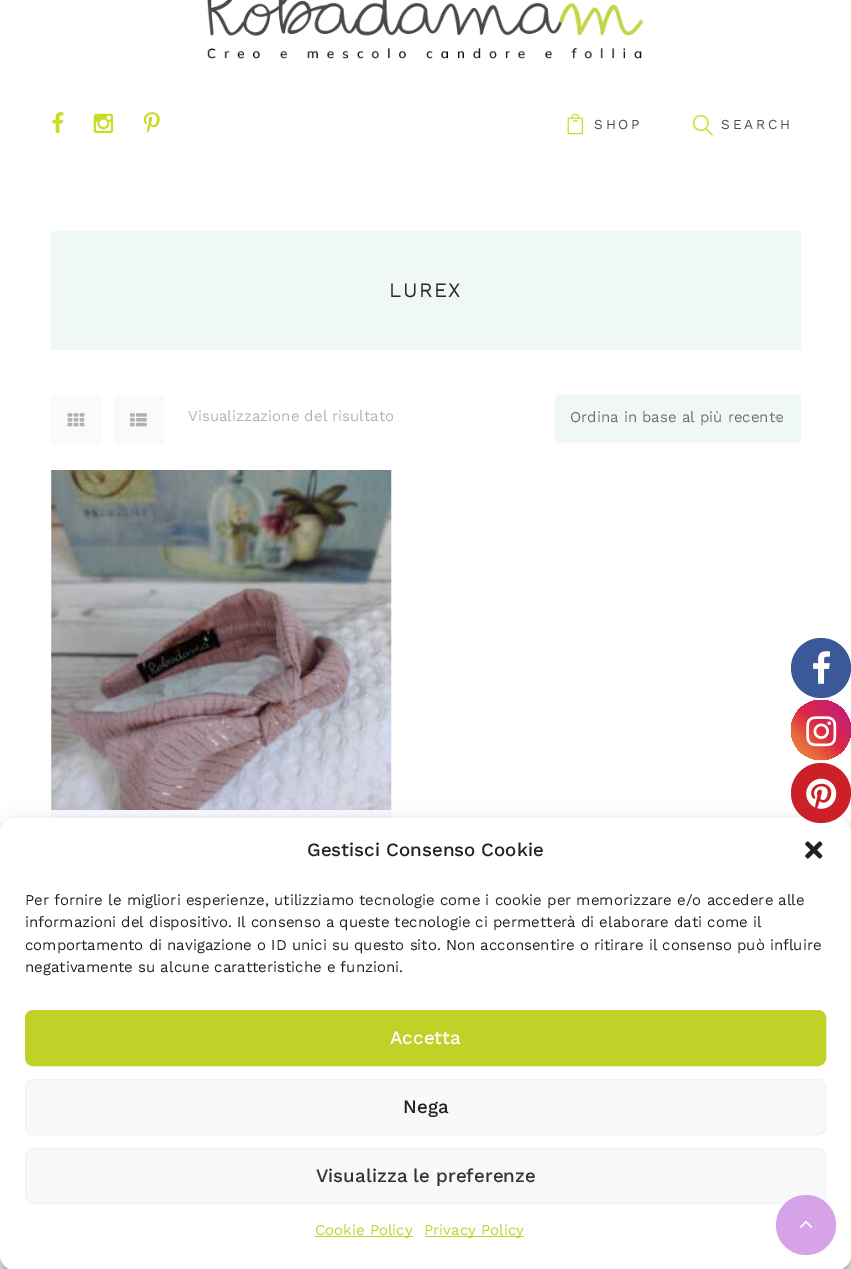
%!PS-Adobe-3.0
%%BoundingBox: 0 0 851 1269
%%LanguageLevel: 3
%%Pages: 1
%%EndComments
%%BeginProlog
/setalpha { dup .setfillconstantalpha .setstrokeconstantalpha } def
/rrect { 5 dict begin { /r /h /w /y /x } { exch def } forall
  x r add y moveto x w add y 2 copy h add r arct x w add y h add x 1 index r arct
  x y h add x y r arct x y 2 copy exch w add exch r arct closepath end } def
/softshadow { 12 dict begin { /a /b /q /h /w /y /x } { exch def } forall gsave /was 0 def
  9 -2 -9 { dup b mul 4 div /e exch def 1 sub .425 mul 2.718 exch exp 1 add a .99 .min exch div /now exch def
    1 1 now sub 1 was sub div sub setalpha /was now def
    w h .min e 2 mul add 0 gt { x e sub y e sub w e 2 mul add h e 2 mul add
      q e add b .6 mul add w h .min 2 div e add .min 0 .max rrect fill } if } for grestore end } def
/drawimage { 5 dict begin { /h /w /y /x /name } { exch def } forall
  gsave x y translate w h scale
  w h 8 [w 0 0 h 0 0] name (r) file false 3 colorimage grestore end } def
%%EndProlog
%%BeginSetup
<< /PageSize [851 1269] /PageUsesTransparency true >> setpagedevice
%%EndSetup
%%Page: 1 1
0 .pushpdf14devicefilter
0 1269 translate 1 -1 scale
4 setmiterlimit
1 setgray
0 0 851 1269 rectfill
(images/1.raw) 207 0 436 59 drawimage
(images/2.raw) 52 112 12 21 drawimage
(images/3.raw) 93 113 21 20 drawimage
(images/4.raw) 143 112 17 21 drawimage
(images/5.raw) 567 113 17 22 drawimage
(images/6.raw) 692 115 21 21 drawimage
0.941 0.969 0.969 setrgbcolor
51 231 750 119 rectfill
0.98 setgray
51 395 50 50 2.5 rrect fill
(images/7.raw) 67 413 18 14 drawimage
114 395 50 50 2.5 rrect fill
(images/8.raw) 130 413 17 14 drawimage
0.976 0.969 1 setrgbcolor
555 395 246 48 2.5 rrect fill
gsave
555 395 246 48 2.5 rrect clip newpath
0.941 0.969 0.969 setrgbcolor
newpath 559 395 moveto 798.5 395 lineto 800 395 801 396 801 397.5 curveto 801 440.5 lineto 801 442 800 443 798.5 443 curveto 559 443 lineto 557 443 555 441 555 439 curveto 555 399 lineto 555 397 557 395 559 395 curveto closepath fill
grestore
(images/10.raw) 51 470 341 340 drawimage
51 810 340 8 rectfill
0.231 0.349 0.596 setrgbcolor
newpath 821 668 30 0 360 arc closepath fill
(images/11.raw) 813 651 17 33 drawimage
gsave newpath 821 730 30 0 360 arc closepath clip newpath
<< /ShadingType 2 /ColorSpace /DeviceRGB /Coords [791 760 851 700] /Extend [true true] /Function << /FunctionType 3 /Domain [0 1] /Functions [<< /FunctionType 2 /Domain [0 1] /C0 [0.941 0.58 0.2] /C1 [0.902 0.408 0.235] /N 1 >> << /FunctionType 2 /Domain [0 1] /C0 [0.902 0.408 0.235] /C1 [0.863 0.153 0.263] /N 1 >> << /FunctionType 2 /Domain [0 1] /C0 [0.863 0.153 0.263] /C1 [0.8 0.137 0.4] /N 1 >> << /FunctionType 2 /Domain [0 1] /C0 [0.8 0.137 0.4] /C1 [0.737 0.094 0.533] /N 1 >>] /Bounds [0.25 0.5 0.75] /Encode [0 1 0 1 0 1 0 1] >> >> shfill grestore
(images/12.raw) 806 716 31 31 drawimage
0 setgray
0 825 851 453 15 4 0.23 softshadow
0 830 851 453 15 12.5 0.19 softshadow
1 setgray
0 818 851 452 15 rrect fill
0.796 0.125 0.153 setrgbcolor
newpath 821 793 30 0 360 arc closepath fill
(images/13.raw) 806 778 31 31 drawimage
(images/14.raw) 805 841 18 18 drawimage
0.753 0.82 0.153 setrgbcolor
25.5 1010.5 800 55 7.5 rrect gsave fill grestore
stroke
0.976 setgray
25.5 1079.5 800 55 7.5 rrect gsave fill grestore
0.949 setgray
stroke
0.976 setgray
25.5 1148.5 800 55 7.5 rrect gsave fill grestore
0.949 setgray
stroke
0.753 0.82 0.153 setrgbcolor
315 1236 98 1 rectfill
425 1236 99 1 rectfill
0.839 0.635 0.91 setrgbcolor
newpath 806 1225 30 0 360 arc closepath fill
(images/15.raw) 799 1220 14 8 drawimage
/WorkSans-Regular [13.75 0 0 -13.75 0 0] selectfont
0.306 setgray
594 129 moveto 2.75 0 (SHOP) ashow
721 129 moveto 2.75 0 (SEARCH) ashow
/WorkSans-Regular [20.5 0 0 -20.5 0 0] selectfont
0.157 setgray
389 297 moveto 1.5 0 (LUREX) ashow
/WorkSans-Regular [15 0 0 -15 0 0] selectfont
0.698 0.694 0.694 setrgbcolor
188 421 moveto (Visualizzazione del risultato) show
0.439 setgray
570 422 moveto (Ordina in base al più recente) show
(images/9.raw) 774 416 9 6 drawimage
/WorkSans-Medium [18.75 0 0 -18.75 0 0] selectfont
0.133 setgray
307 856 moveto (Gestisci Consenso Cookie) show
/WorkSans-Regular [15 0 0 -15 0 0] selectfont
25 905 moveto (Per fornire le migliori esperienze, utilizziamo tecnologie come i cookie per memorizzare e/o accedere alle) show
25 927 moveto (informazioni del dispositivo. Il consenso a queste tecnologie ci permetterà di elaborare dati come il) show
25 950 moveto (comportamento di navigazione o ID unici su questo sito. Non acconsentire o ritirare il consenso può influire) show
25 972 moveto (negativamente su alcune caratteristiche e funzioni.) show
/WorkSans-Medium [18.75 0 0 -18.75 0 0] selectfont
1 setgray
390 1044 moveto (Accetta) show
0.133 setgray
403 1113 moveto (Nega) show
0.2 setgray
316 1182 moveto (Visualizza le preferenze) show
/WorkSans-Regular [15 0 0 -15 0 0] selectfont
0.753 0.82 0.153 setrgbcolor
315 1235 moveto (Cookie Policy) show
424 1235 moveto (Privacy Policy) show
.poppdf14devicefilter showpage
%%EOF
